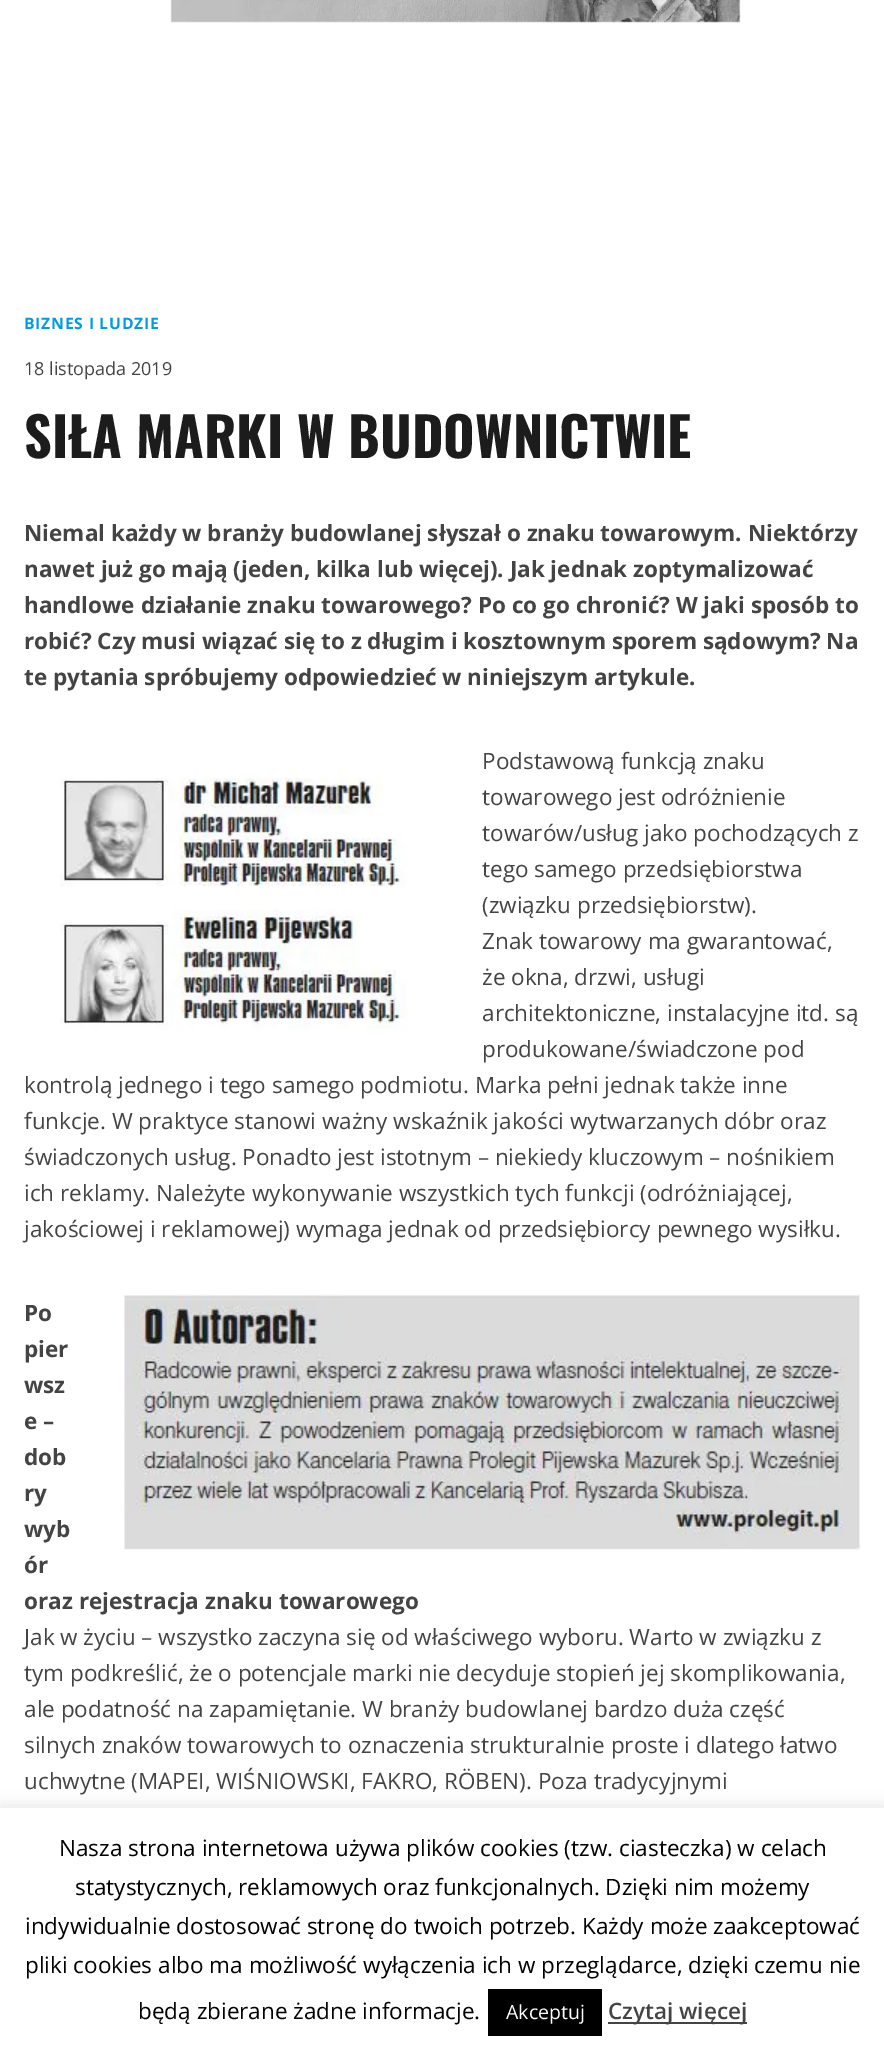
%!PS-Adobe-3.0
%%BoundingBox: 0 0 884 2053
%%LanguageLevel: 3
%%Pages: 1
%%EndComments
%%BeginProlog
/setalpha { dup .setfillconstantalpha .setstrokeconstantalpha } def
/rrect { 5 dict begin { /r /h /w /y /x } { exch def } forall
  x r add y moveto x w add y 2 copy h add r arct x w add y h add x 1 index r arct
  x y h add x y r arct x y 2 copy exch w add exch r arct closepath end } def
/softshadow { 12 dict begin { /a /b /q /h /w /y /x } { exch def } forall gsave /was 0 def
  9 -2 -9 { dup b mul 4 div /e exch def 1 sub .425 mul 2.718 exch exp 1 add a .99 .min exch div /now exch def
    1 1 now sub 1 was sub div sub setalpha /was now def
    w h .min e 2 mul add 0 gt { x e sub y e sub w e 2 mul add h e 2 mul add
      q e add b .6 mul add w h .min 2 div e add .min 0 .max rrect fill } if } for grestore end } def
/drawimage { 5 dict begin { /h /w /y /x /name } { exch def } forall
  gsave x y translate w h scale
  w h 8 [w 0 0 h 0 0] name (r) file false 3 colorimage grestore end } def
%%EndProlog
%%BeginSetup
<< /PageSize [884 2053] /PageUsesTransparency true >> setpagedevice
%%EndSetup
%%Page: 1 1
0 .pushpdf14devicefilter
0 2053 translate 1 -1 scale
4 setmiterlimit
1 setgray
0 0 884 2053 rectfill
(images/1.raw) 170 0 571 24 drawimage
(images/2.raw) 60 766 348 265 drawimage
(images/3.raw) 124 1294 737 257 drawimage
0.675 0.671 0.671 setrgbcolor
0 1806 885 246 0 7.5 0.3 softshadow
1 setgray
0 1808 884 245 rectfill
0 setgray
488 1989 114 47 rectfill
0.267 setgray
608 2022 139 2 rectfill
/OpenSans-Bold [15.75 0 0 -15.75 0 0] selectfont
0.008 0.608 0.875 setrgbcolor
24 329 moveto 0.75 0 (BIZNES I LUDZIE) ashow
/OpenSans-Regular [18 0 0 -18 0 0] selectfont
0.267 setgray
24 375 moveto (18 listopada 2019) show
/Oswald-Bold [54 0 0 -54 0 0] selectfont
0.11 setgray
24 458 moveto (SIŁA MARKI W BUDOWNICTWIE) show
/OpenSans-Bold [22.5 0 0 -22.5 0 0] selectfont
0.267 setgray
24 541 moveto (Niemal każdy w branży budowlanej słyszał o znaku towarowym. Niektórzy) show
24 577 moveto (nawet już go mają \(jeden, kilka lub więcej\). Jak jednak zoptymalizować) show
24 613 moveto (handlowe działanie znaku towarowego? Po co go chronić? W jaki sposób to) show
24 649 moveto (robić? Czy musi wiązać się to z długim i kosztownym sporem sądowym? Na) show
24 685 moveto (te pytania spróbujemy odpowiedzieć w niniejszym artykule.) show
/OpenSans-Regular [22.5 0 0 -22.5 0 0] selectfont
482 769 moveto (Podstawową funkcją znaku) show
482 805 moveto (towarowego jest odróżnienie) show
482 841 moveto (towarów/usług jako pochodzących z) show
482 877 moveto (tego samego przedsiębiorstwa) show
482 913 moveto (\(związku przedsiębiorstw\).) show
482 949 moveto (Znak towarowy ma gwarantować,) show
482 985 moveto (że okna, drzwi, usługi) show
482 1021 moveto (architektoniczne, instalacyjne itd. są) show
482 1057 moveto (produkowane/świadczone pod) show
24 1093 moveto (kontrolą jednego i tego samego podmiotu. Marka pełni jednak także inne) show
24 1129 moveto (funkcje. W praktyce stanowi ważny wskaźnik jakości wytwarzanych dóbr oraz) show
24 1165 moveto (świadczonych usług. Ponadto jest istotnym – niekiedy kluczowym – nośnikiem) show
24 1201 moveto (ich reklamy. Należyte wykonywanie wszystkich tych funkcji \(odróżniającej,) show
24 1237 moveto (jakościowej i reklamowej\) wymaga jednak od przedsiębiorcy pewnego wysiłku.) show
/OpenSans-Bold [22.5 0 0 -22.5 0 0] selectfont
24 1321 moveto (Po) show
24 1357 moveto (pier) show
24 1393 moveto (wsz) show
24 1429 moveto (e –) show
24 1465 moveto (dob) show
24 1501 moveto (ry) show
24 1537 moveto (wyb) show
24 1573 moveto (ór) show
24 1609 moveto (oraz rejestracja znaku towarowego) show
/OpenSans-Regular [22.5 0 0 -22.5 0 0] selectfont
24 1645 moveto (Jak w życiu – wszystko zaczyna się od właściwego wyboru. Warto w związku z) show
24 1681 moveto (tym podkreślić, że o potencjale marki nie decyduje stopień jej skomplikowania,) show
24 1717 moveto (ale podatność na zapamiętanie. W branży budowlanej bardzo duża część) show
24 1753 moveto (silnych znaków towarowych to oznaczenia strukturalnie proste i dlatego łatwo) show
24 1789 moveto (uchwytne \(MAPEI, WIŚNIOWSKI, FAKRO, RÖBEN\). Poza tradycyjnymi) show
0 setgray
59 1856 moveto (Nasza strona internetowa używa plików cookies \(tzw. ciasteczka\) w celach) show
75 1895 moveto (statystycznych, reklamowych oraz funkcjonalnych. Dzięki nim możemy) show
25 1934 moveto (indywidualnie dostosować stronę do twoich potrzeb. Każdy może zaakceptować) show
25 1973 moveto (pliki cookies albo ma możliwość wyłączenia ich w przeglądarce, dzięki czemu nie) show
138 2019 moveto (będą zbierane żadne informacje.) show
/OpenSans-Regular [19.5 0 0 -19.5 0 0] selectfont
1 setgray
506 2019 moveto (Akceptuj) show
/OpenSans-SemiBold [22.5 0 0 -22.5 0 0] selectfont
0.267 setgray
608 2019 moveto (Czytaj więcej) show
.poppdf14devicefilter showpage
%%EOF
